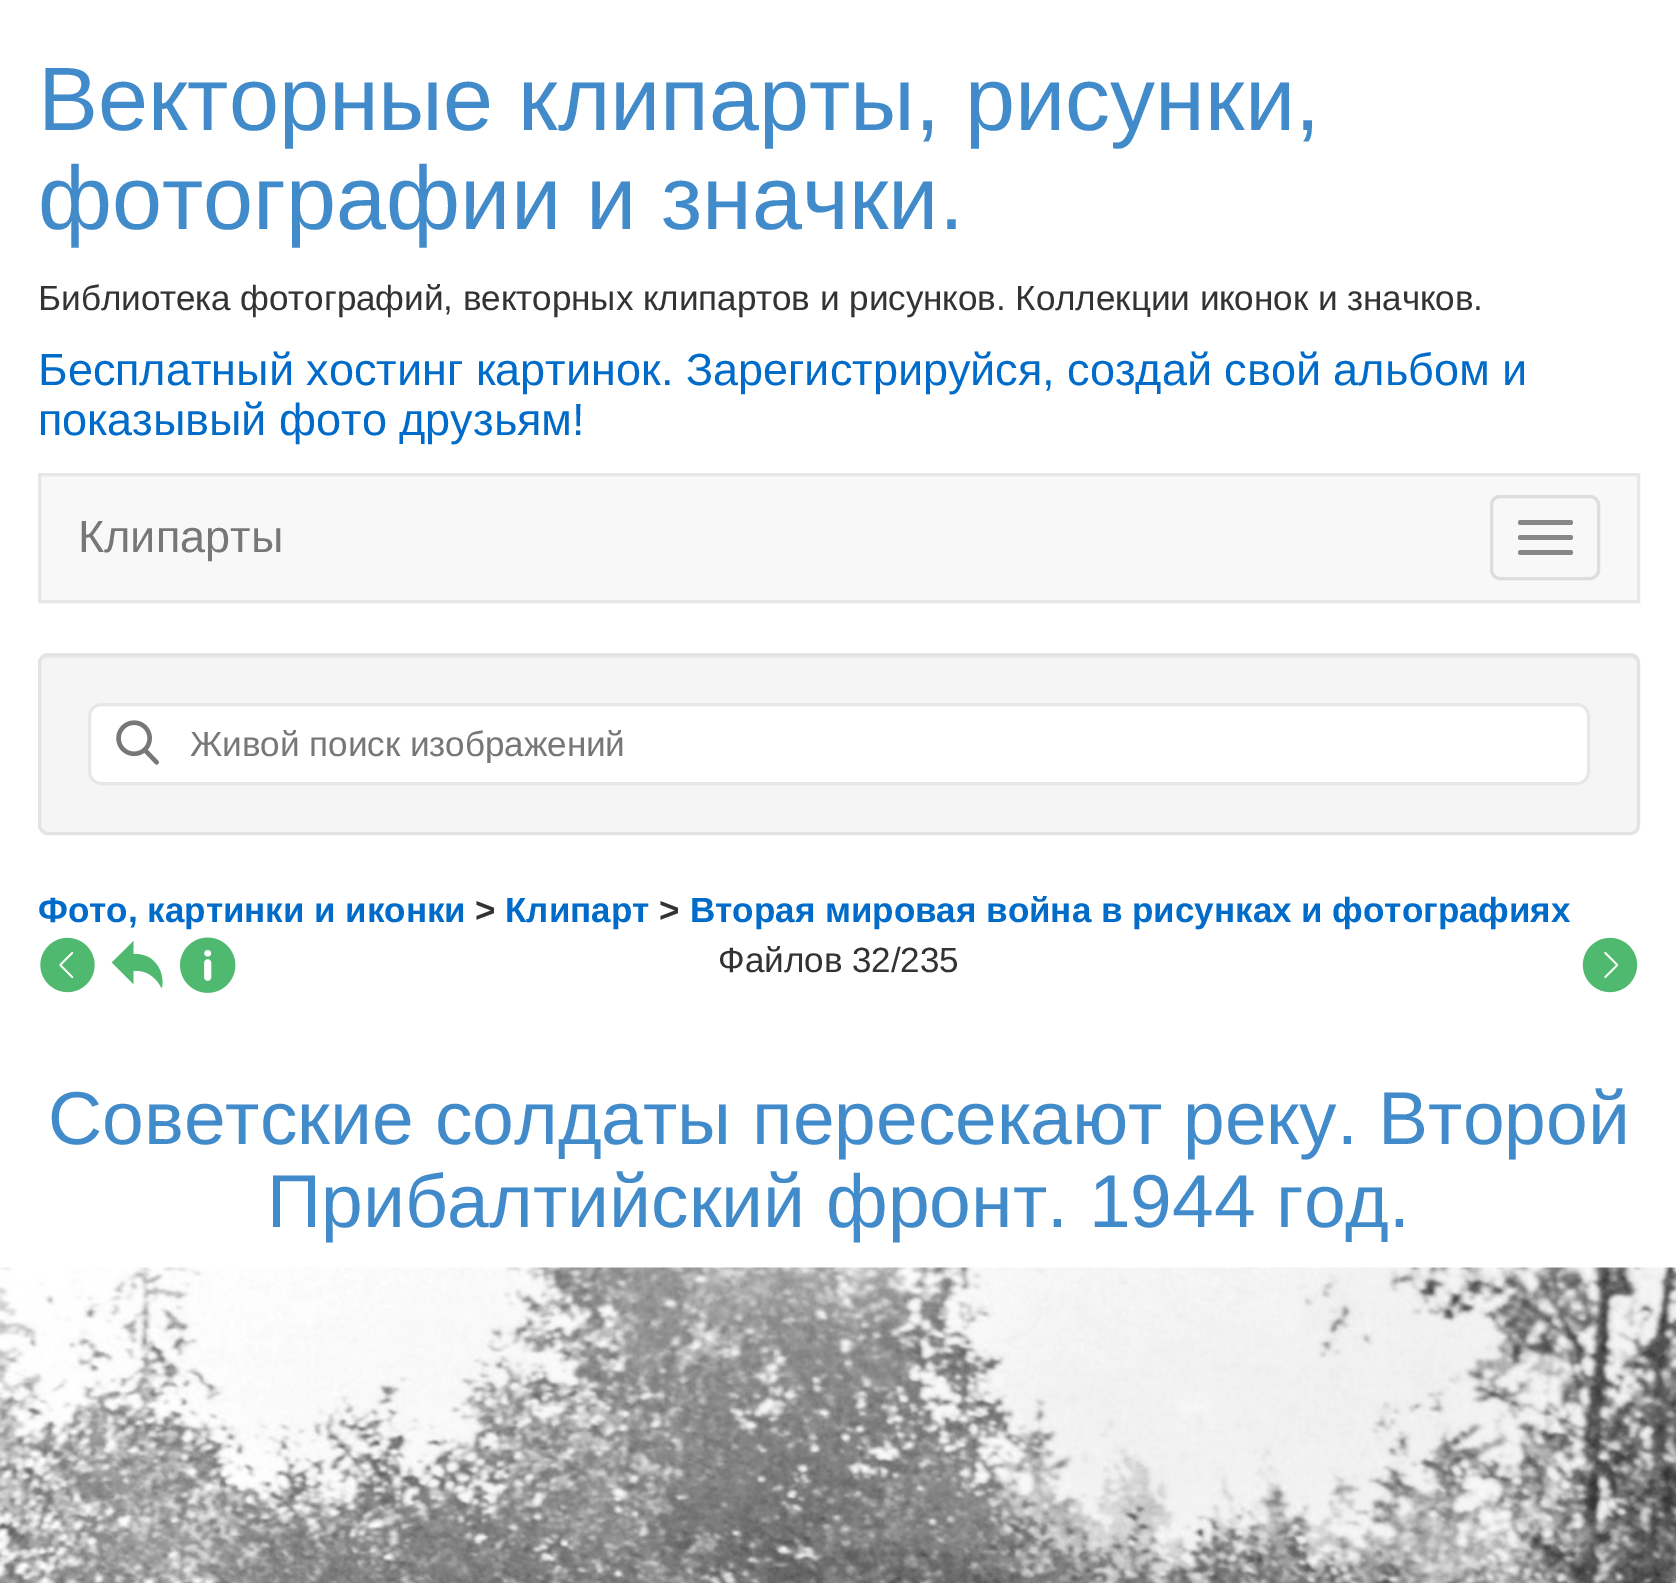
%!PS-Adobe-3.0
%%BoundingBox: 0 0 1676 1583
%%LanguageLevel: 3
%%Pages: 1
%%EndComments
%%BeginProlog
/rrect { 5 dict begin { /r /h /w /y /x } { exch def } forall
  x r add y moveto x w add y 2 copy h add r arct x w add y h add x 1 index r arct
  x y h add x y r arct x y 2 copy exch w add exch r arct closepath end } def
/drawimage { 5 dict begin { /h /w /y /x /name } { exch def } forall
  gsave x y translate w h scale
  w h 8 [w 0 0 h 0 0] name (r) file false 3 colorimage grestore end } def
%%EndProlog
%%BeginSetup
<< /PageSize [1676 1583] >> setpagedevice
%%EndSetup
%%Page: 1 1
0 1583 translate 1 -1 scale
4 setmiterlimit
1 setgray
0 0 1676 1583 rectfill
0.973 setgray
newpath 39.5 474.5 moveto 1638.5 474.5 lineto 1638.5 601.5 lineto 39.5 601.5 lineto closepath gsave fill grestore
0.906 setgray
3 setlinewidth
stroke
0.867 setgray
1491.5 496.5 107 82 8.5 rrect stroke
0.533 setgray
1518 520 55 5 2.5 rrect fill
1518 535 55 5 2.5 rrect fill
1518 550 55 5 2.5 rrect fill
0.961 setgray
38 653 1602 182 10 rrect fill
0.914 setgray
newpath 48 658 moveto 1630 658 lineto 1634 658 1638 661 1638 665 curveto 1638 660 1636 655 1630 655 curveto 48 655 lineto 42 655 40 660 40 665 curveto 40 661 43 658 48 658 curveto closepath fill
0.89 setgray
39.5 654.5 1599 179 8.5 rrect stroke
1 setgray
88 703 1502 82 13 rrect fill
(images/1.raw) 116 720 43 45 drawimage
0.906 setgray
89.5 704.5 1499 79 11.5 rrect stroke
(images/2.raw) 40 937 55 56 drawimage
(images/3.raw) 111 940 52 49 drawimage
(images/4.raw) 180 937 56 56 drawimage
(images/5.raw) 1582 937 56 56 drawimage
(images/6.raw) 0 1267 1676 316 drawimage
/LiberationSans-Regular [90 0 0 -90 0 0] selectfont
0.259 0.545 0.792 setrgbcolor
38 130 moveto (Векторные клипарты, рисунки,) show
38 229 moveto (фотографии и значки.) show
/LiberationSans-Regular [35 0 0 -35 0 0] selectfont
0.2 setgray
38 310 moveto (Библиотека фотографий, векторных клипартов и рисунков. Коллекции иконок и значков.) show
/LiberationSans-Regular [45 0 0 -45 0 0] selectfont
0 0.42 0.784 setrgbcolor
38 385 moveto (Бесплатный хостинг картинок. Зарегистрируйся, создай свой альбом и) show
38 435 moveto (показывый фото друзьям!) show
0.467 setgray
78 552 moveto (Клипарты) show
gsave
190 723 1373 40 rectclip
/LiberationSans-Regular [35 0 0 -35 0 0] selectfont
190 756 moveto (Живой поиск изображений) show
grestore
/LiberationSans-Bold [35 0 0 -35 0 0] selectfont
0 0.42 0.784 setrgbcolor
38 922 moveto (Фото, картинки и иконки) show
0.2 setgray
475 922 moveto (>) show
0 0.42 0.784 setrgbcolor
505 922 moveto (Клипарт) show
0.2 setgray
659 922 moveto (>) show
0 0.42 0.784 setrgbcolor
690 922 moveto (Вторая мировая война в рисунках и фотографиях) show
/LiberationSans-Regular [35 0 0 -35 0 0] selectfont
0.2 setgray
718 972 moveto (Файлов 32/235) show
/LiberationSans-Regular [75 0 0 -75 0 0] selectfont
0.259 0.545 0.792 setrgbcolor
48 1144 moveto (Советские солдаты пересекают реку. Второй) show
267 1227 moveto (Прибалтийский фронт. 1944 год.) show
showpage
%%EOF
